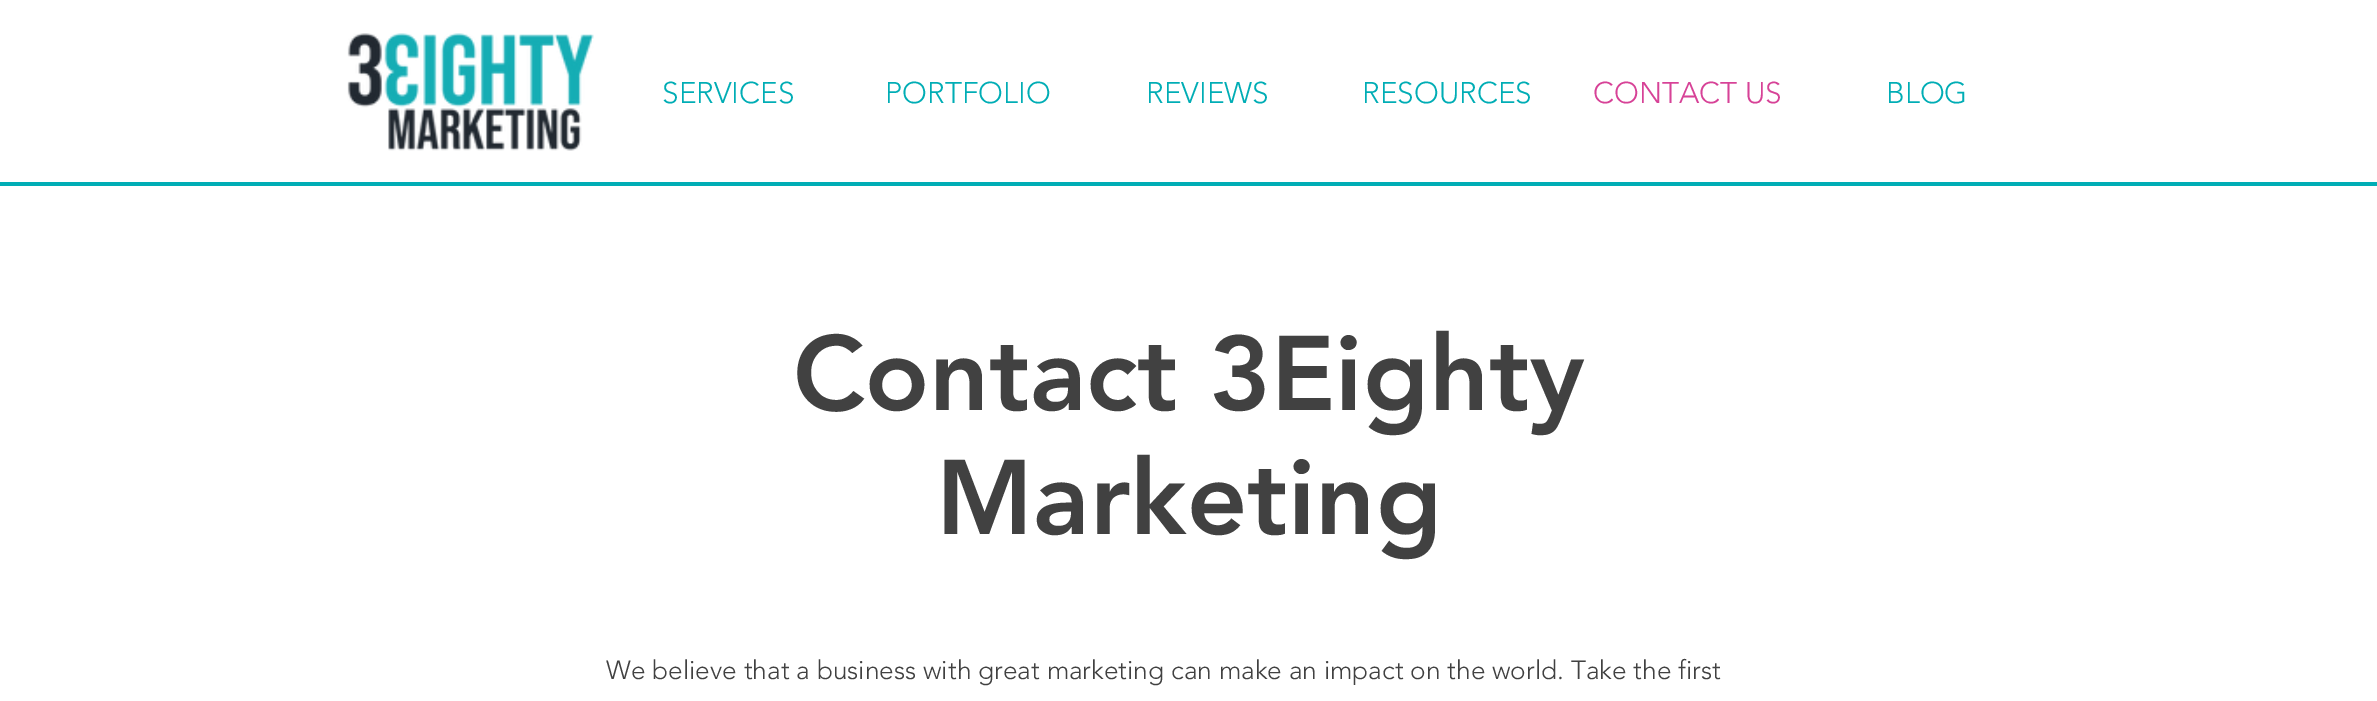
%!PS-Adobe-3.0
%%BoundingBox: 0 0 2377 701
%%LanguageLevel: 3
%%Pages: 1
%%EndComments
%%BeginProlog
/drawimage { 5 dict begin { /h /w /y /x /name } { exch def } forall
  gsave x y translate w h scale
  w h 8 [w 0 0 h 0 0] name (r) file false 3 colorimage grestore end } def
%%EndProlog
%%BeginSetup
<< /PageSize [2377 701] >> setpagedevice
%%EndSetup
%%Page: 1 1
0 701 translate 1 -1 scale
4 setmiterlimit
1 setgray
0 0 2377 701 rectfill
(images/1.raw) 347 33 247 118 drawimage
0 0.678 0.71 setrgbcolor
0 182 2377 4 rectfill
/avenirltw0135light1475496-Light [29.75 0 0 -29.75 0 0] selectfont
662 103 moveto (SERVICES) show
885 103 moveto (PORTFOLIO) show
1146 103 moveto (REVIEWS) show
1362 103 moveto (RESOURCES) show
0.843 0.259 0.592 setrgbcolor
1593 103 moveto (CONTACT US) show
0 0.678 0.71 setrgbcolor
1886 103 moveto (BLOG) show
/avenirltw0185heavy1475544-Black [105 0 0 -105 0 0] selectfont
0.255 setgray
793 410 moveto (Contact 3Eighty) show
936 534 moveto (Marketing) show
/avenirltw0135light1475496-Light [26.25 0 0 -26.25 0 0] selectfont
606 679 moveto (We believe that a business with great marketing can make an impact on the world. Take the first) show
showpage
%%EOF
